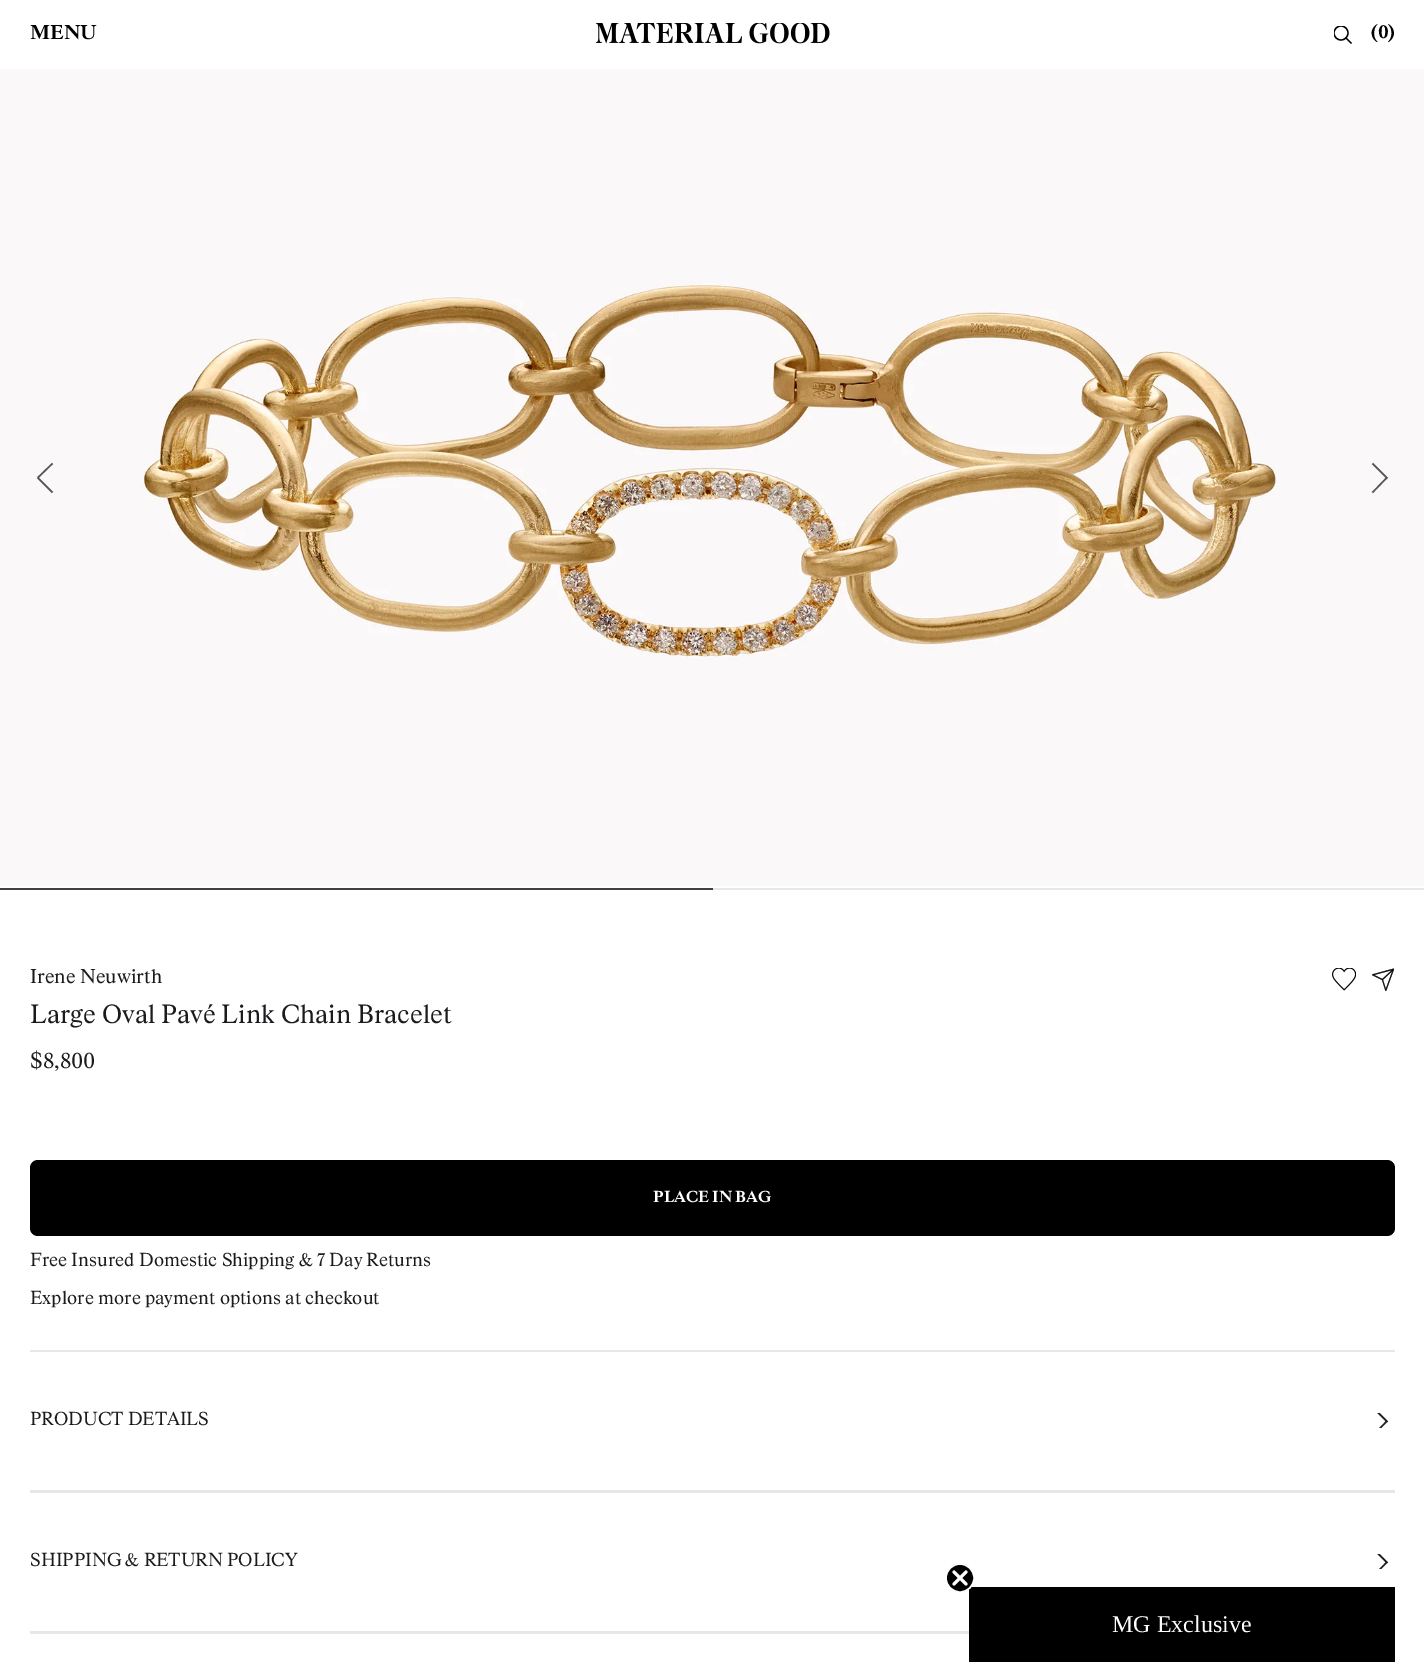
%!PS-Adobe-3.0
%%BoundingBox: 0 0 1424 1662
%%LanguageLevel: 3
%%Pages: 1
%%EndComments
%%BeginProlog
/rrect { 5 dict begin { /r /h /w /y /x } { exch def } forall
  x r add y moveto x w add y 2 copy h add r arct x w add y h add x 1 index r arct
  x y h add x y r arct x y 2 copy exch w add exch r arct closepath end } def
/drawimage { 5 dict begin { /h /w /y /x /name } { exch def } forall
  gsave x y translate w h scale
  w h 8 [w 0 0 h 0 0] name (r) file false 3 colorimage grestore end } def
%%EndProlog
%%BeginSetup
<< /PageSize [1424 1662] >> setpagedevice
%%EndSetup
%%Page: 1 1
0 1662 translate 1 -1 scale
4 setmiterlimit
1 setgray
0 0 1424 1662 rectfill
(images/1.raw) 596 23 234 21 drawimage
gsave
1334 26 19 19 rectclip
0 setgray
1.3 setlinewidth
newpath 1341 33 7 0 360 arc closepath stroke
grestore
0 setgray
1.3 setlinewidth
newpath 1345.5 37.5 moveto 1351.5 43.5 lineto stroke
(images/2.raw) 0 69 1424 817 drawimage
0.337 0.329 0.329 setrgbcolor
1.5 setlinewidth
newpath 52.5 492.5 moveto 37.5 477.5 lineto 52.5 463.5 moveto 38 477.5 lineto stroke
newpath 1372.5 463.5 moveto 1387.5 478.5 lineto 1372.5 492.5 moveto 1386.5 478 lineto stroke
0.251 setgray
0 888 713 2 rectfill
0.906 setgray
713 888 711 2 rectfill
(images/3.raw) 1332 968 24 23 drawimage
(images/4.raw) 1372 968 23 23 drawimage
0 setgray
30 1160 1365 76 8 rrect fill
0.906 setgray
30 1350 1365 2 rectfill
30 1490 1365 3 rectfill
gsave
1371 1413 18 15 rectclip
0.122 setgray
newpath 1372.5 1407 moveto 1387.5 1422 lineto 1372.5 1436 moveto 1386.5 1421.5 lineto stroke
grestore
30 1631 939 3 rectfill
gsave
1371 1554 18 15 rectclip
0.122 setgray
newpath 1372.5 1548 moveto 1387.5 1563 lineto 1372.5 1577 moveto 1386.5 1562.5 lineto stroke
grestore
0 setgray
969 1587 426 75 rectfill
newpath 960 1578 14 0 360 arc closepath gsave fill grestore
1 setgray
stroke
3 setlinewidth
1 setlinecap
1 setlinejoin
newpath 954 1572 moveto 966 1584 lineto 954 1584 moveto 966 1572 lineto closepath stroke
/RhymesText-Bold [19 0 0 -19 0 0] selectfont
0 setgray
30 39 moveto (MENU) show
/RhymesText-Bold [18 0 0 -18 0 0] selectfont
1371 38 moveto (\(0\)) show
/RhymesText-Regular [19 0 0 -19 0 0] selectfont
0.102 0.106 0.114 setrgbcolor
30 983 moveto (Irene Neuwirth) show
/RhymesText-Regular [25.25 0 0 -25.25 0 0] selectfont
30 1023 moveto (Large Oval Pavé Link Chain Bracelet) show
/RhymesText-Regular [21.5 0 0 -21.5 0 0] selectfont
30 1068 moveto ($8,800) show
/RhymesText-Bold [15.25 0 0 -15.25 0 0] selectfont
1 setgray
653 1202 moveto (PLACE IN BAG) show
/RhymesText-Regular [18 0 0 -18 0 0] selectfont
0.102 0.106 0.114 setrgbcolor
30 1266 moveto (Free Insured Domestic Shipping & 7 Day Returns) show
30 1304 moveto (Explore more payment options at checkout) show
30 1425 moveto (PRODUCT DETAILS) show
30 1566 moveto (SHIPPING & RETURN POLICY) show
/LiberationSerif-Regular [24 0 0 -24 0 0] selectfont
1 setgray
1112 1632 moveto (MG Exclusive) show
showpage
%%EOF
